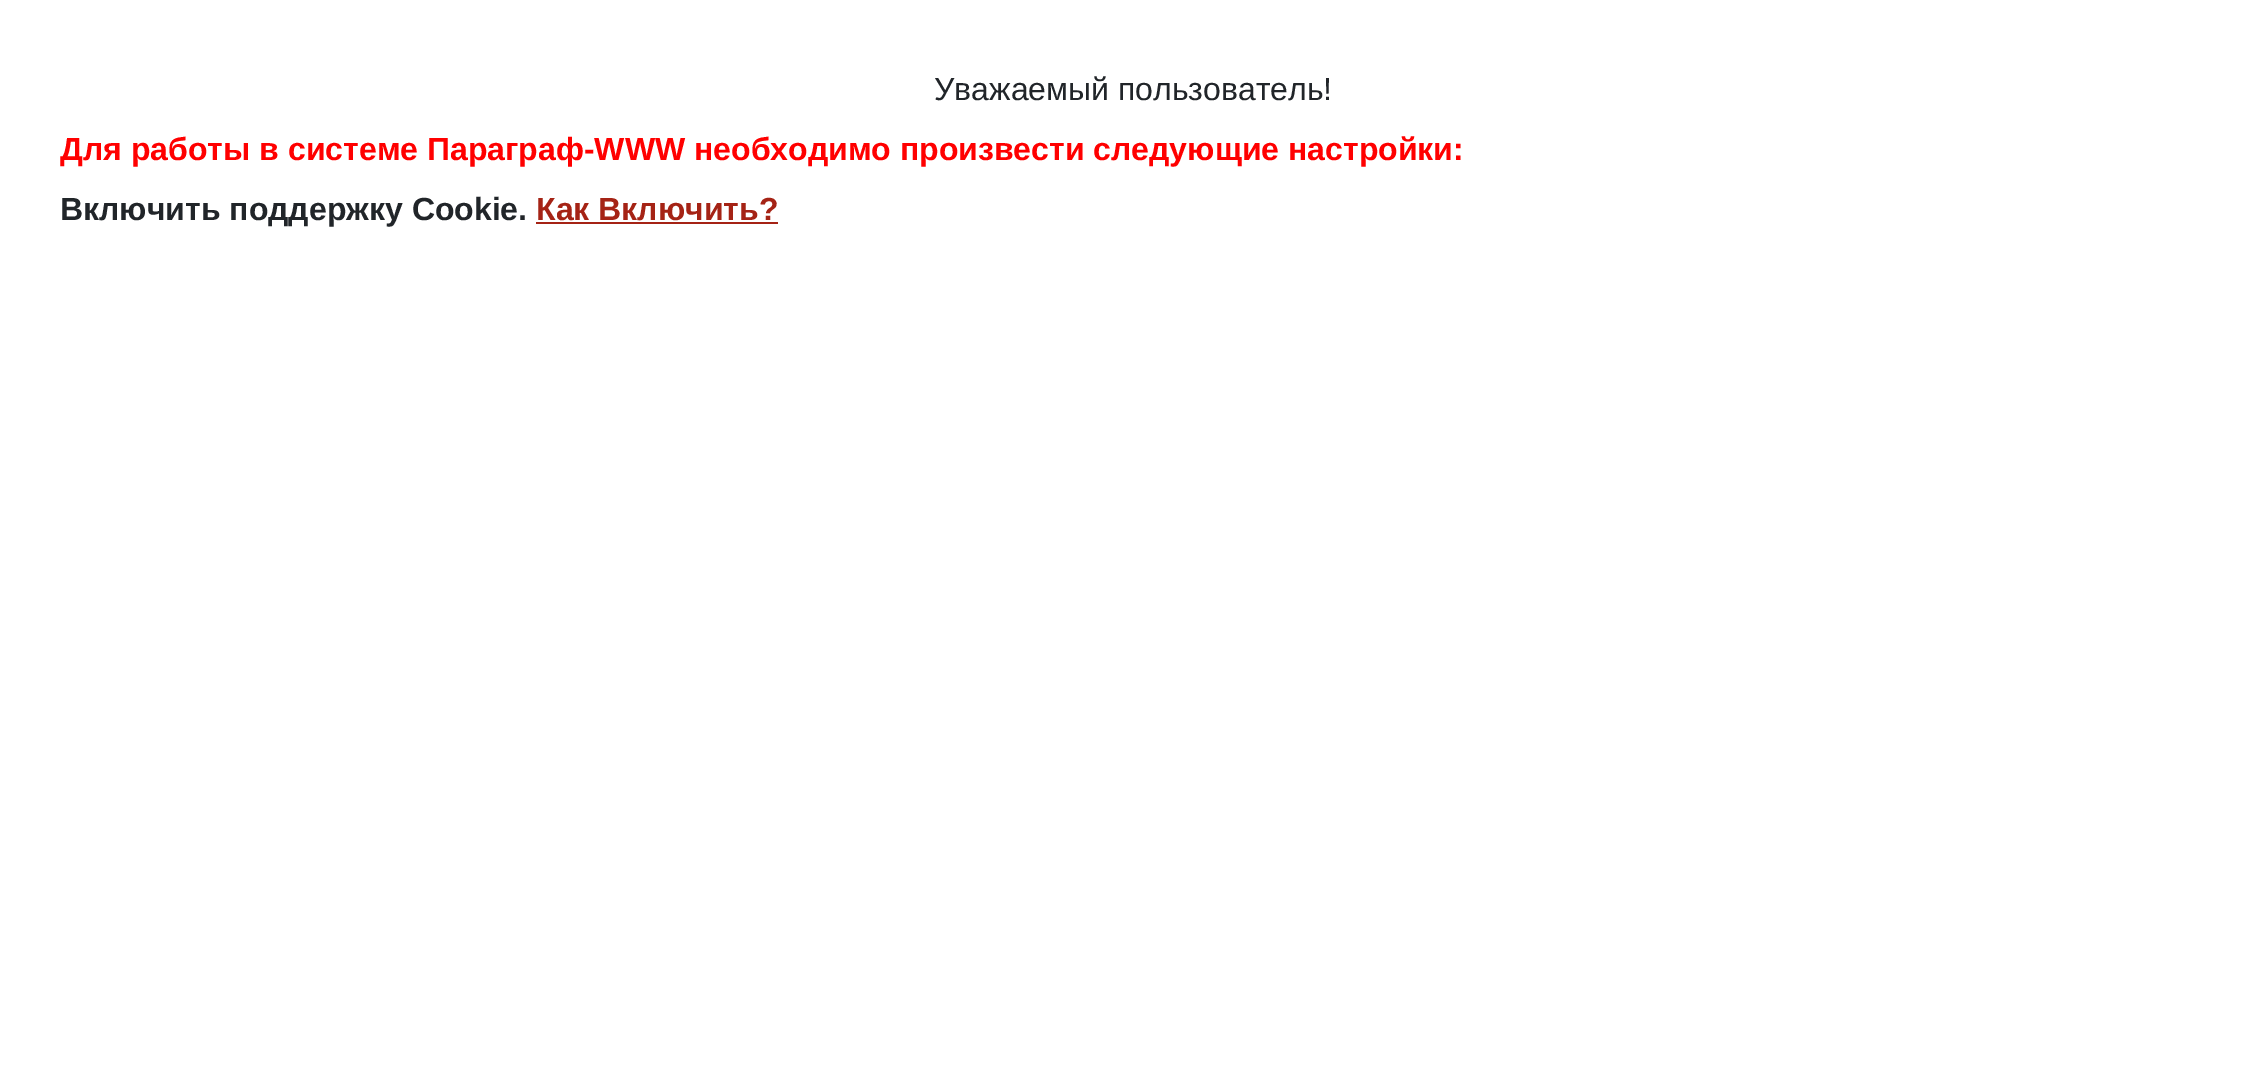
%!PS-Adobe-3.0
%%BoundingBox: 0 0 2266 1089
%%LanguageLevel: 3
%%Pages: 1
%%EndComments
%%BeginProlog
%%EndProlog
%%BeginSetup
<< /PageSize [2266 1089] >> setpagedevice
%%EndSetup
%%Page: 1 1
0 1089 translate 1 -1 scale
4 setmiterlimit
1 setgray
0 0 2266 1089 rectfill
0.647 0.137 0.082 setrgbcolor
536 222 242 2 rectfill
/LiberationSans-Regular [32 0 0 -32 0 0] selectfont
0.129 0.145 0.161 setrgbcolor
934 100 moveto (Уважаемый пользователь!) show
/LiberationSans-Bold [32 0 0 -32 0 0] selectfont
1 0 0 setrgbcolor
60 160 moveto (Для работы в системе Параграф-WWW необходимо произвести следующие настройки:) show
0.129 0.145 0.161 setrgbcolor
60 220 moveto (Включить поддержку Cookie.) show
0.647 0.137 0.082 setrgbcolor
536 220 moveto (Как Включить?) show
showpage
%%EOF
